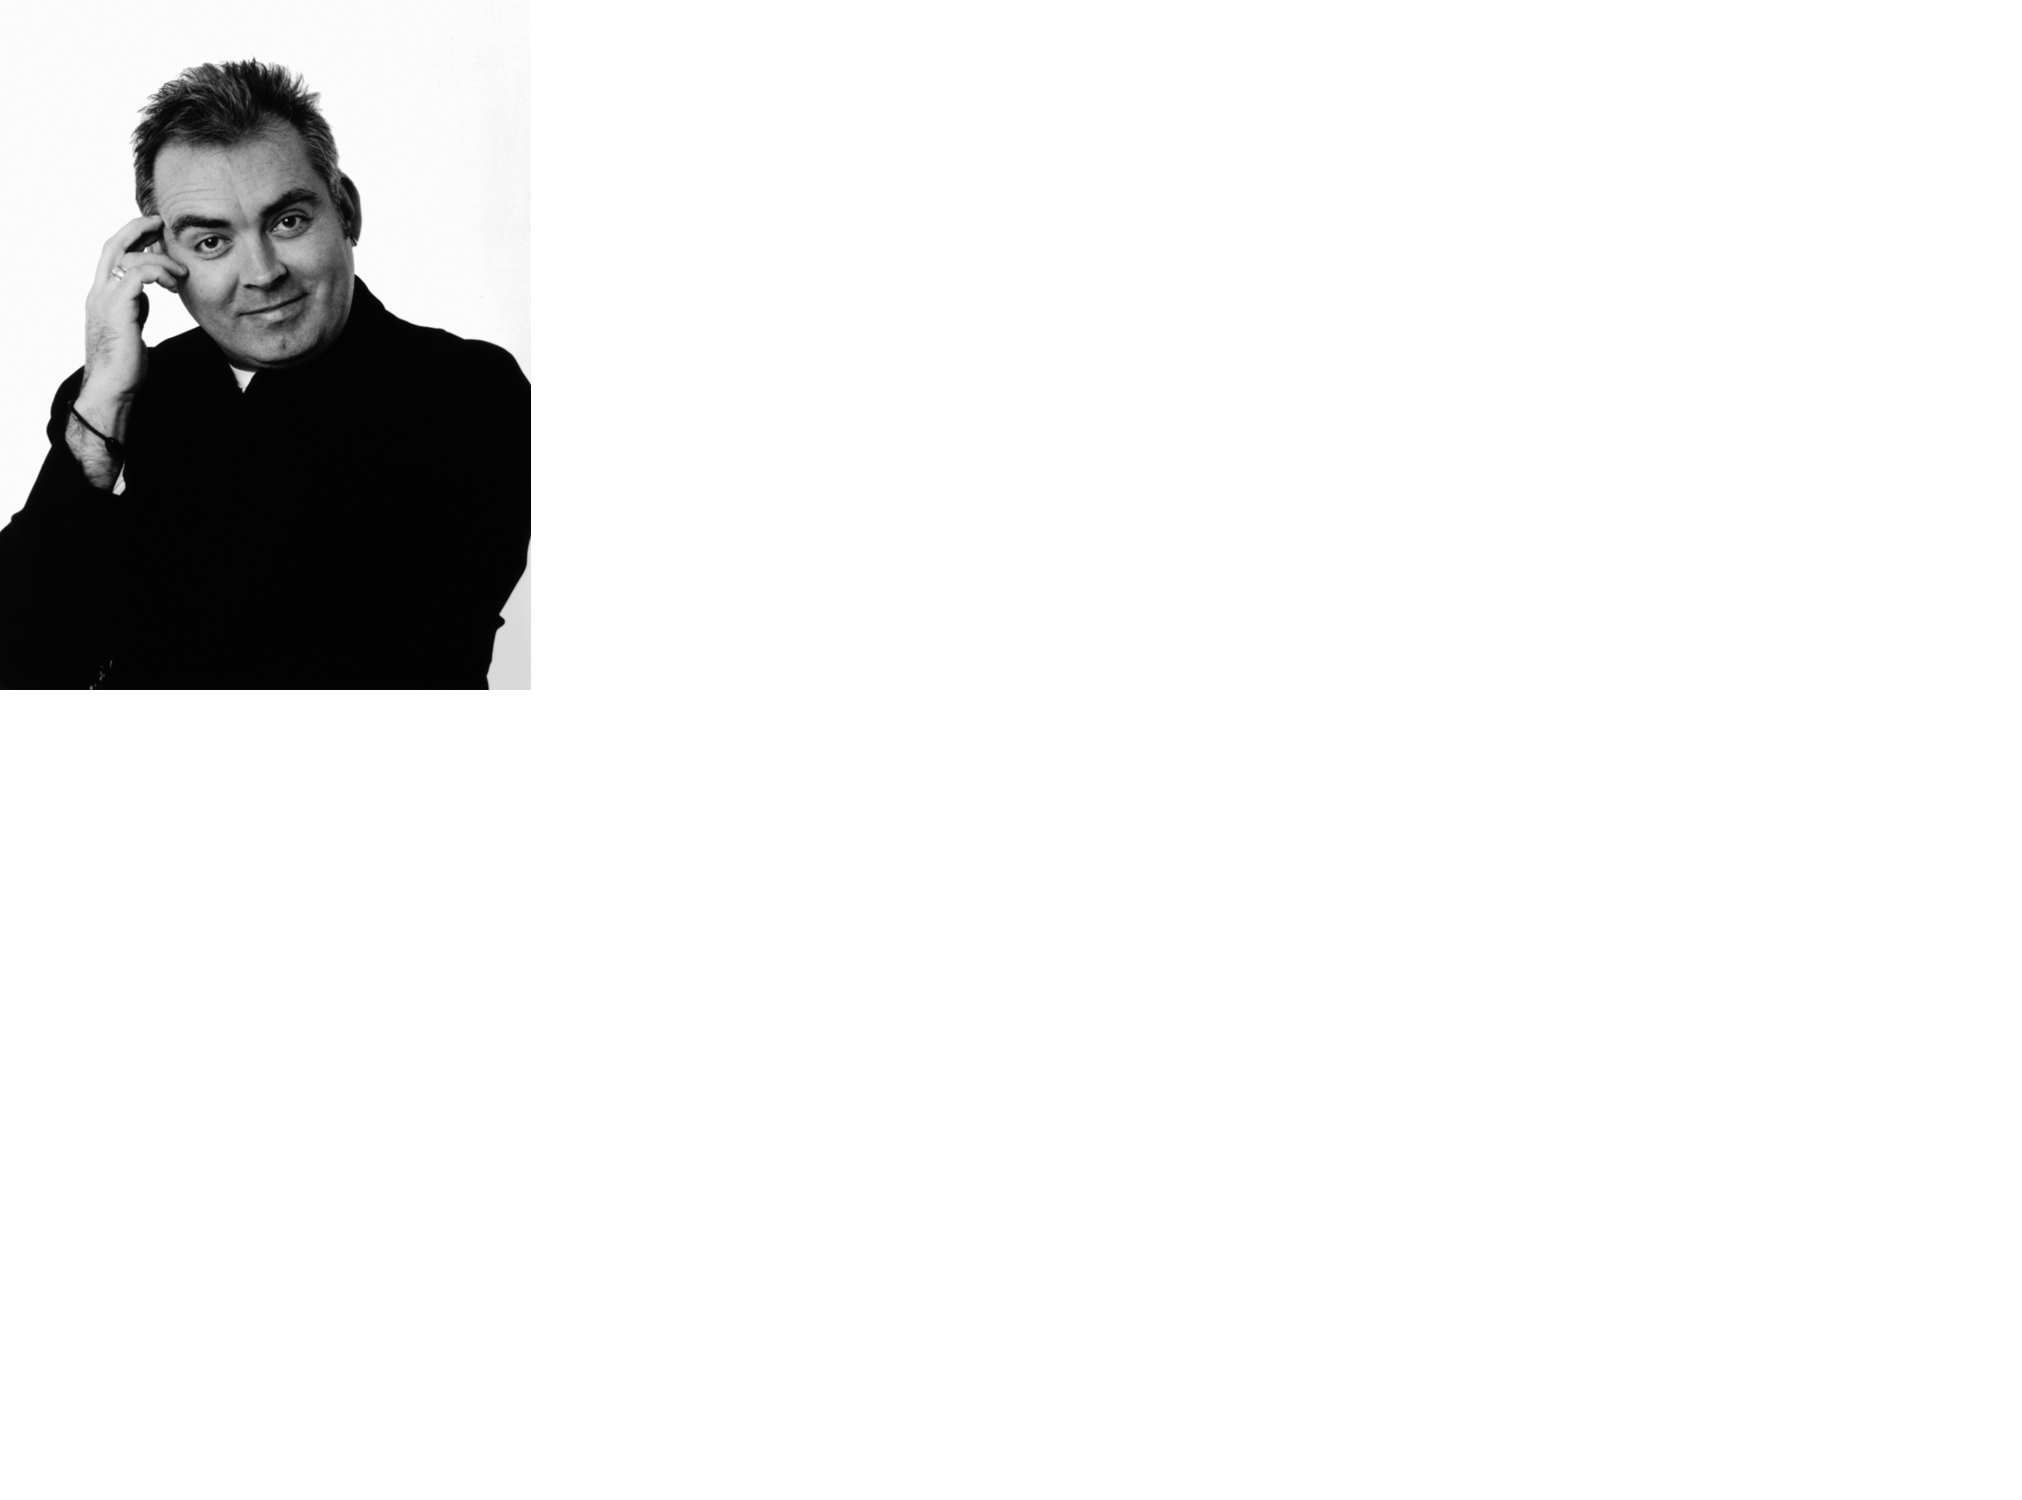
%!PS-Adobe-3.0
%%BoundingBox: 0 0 2022 1500
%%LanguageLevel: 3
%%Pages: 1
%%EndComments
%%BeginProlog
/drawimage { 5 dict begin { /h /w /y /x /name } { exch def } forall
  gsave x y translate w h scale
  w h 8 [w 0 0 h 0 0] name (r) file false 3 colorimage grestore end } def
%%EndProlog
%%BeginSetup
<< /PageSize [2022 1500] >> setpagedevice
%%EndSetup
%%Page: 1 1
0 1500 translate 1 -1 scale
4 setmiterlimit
1 setgray
0 0 2022 1500 rectfill
(images/1.raw) 0 0 531 690 drawimage
showpage
%%EOF
